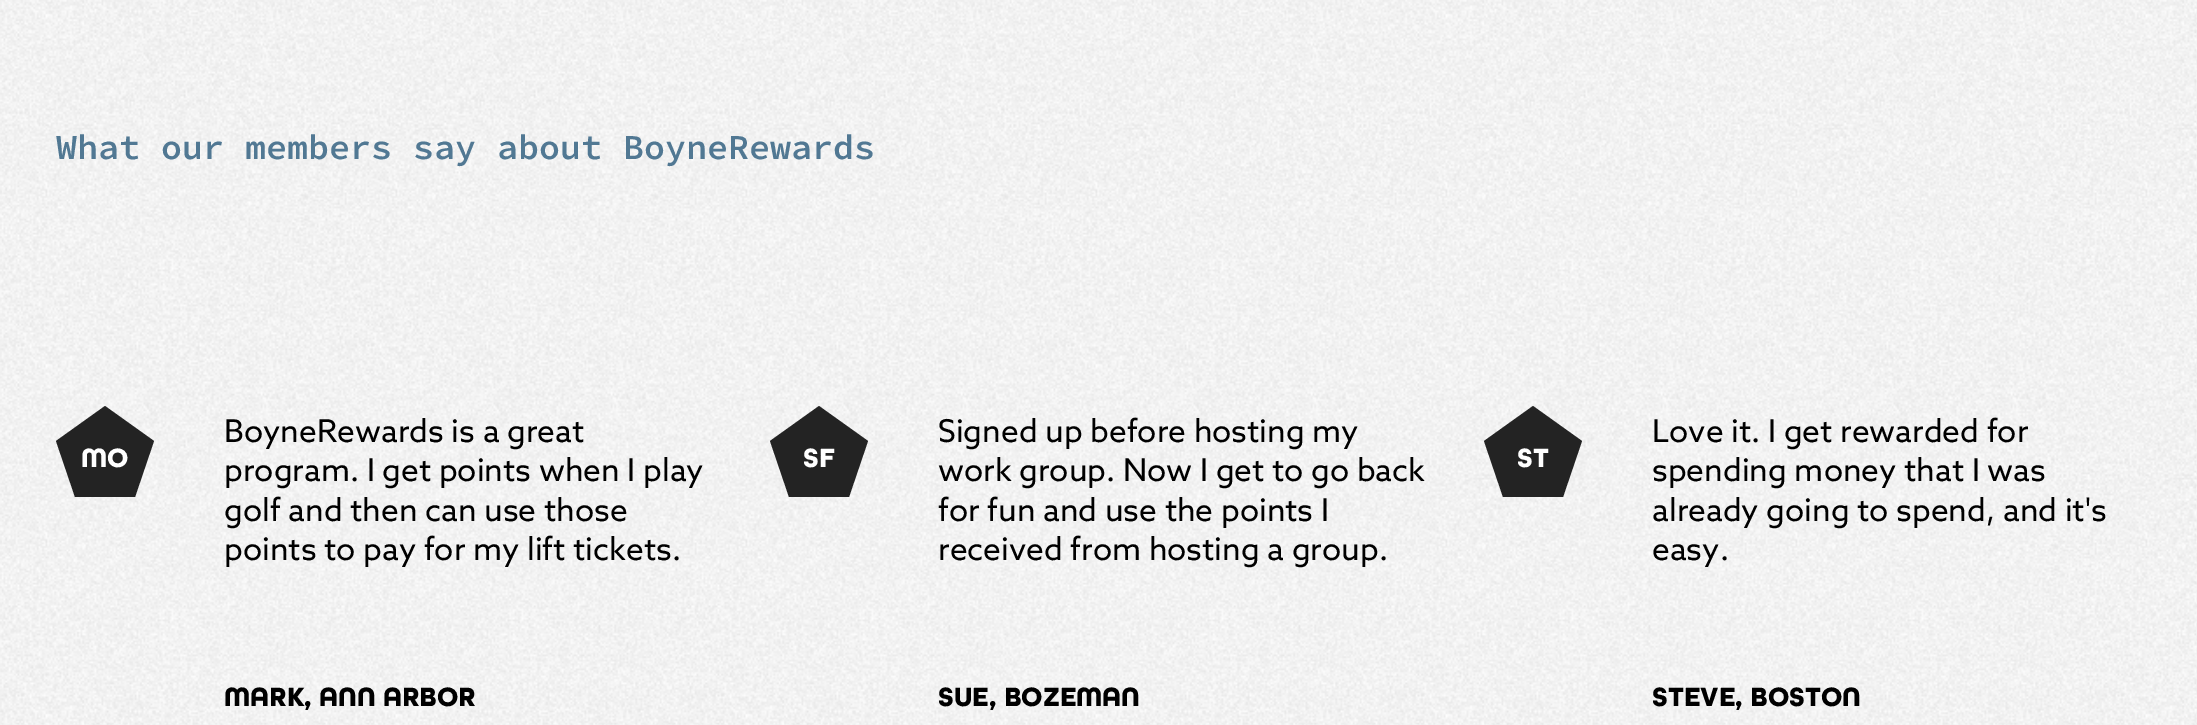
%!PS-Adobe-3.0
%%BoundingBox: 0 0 2197 725
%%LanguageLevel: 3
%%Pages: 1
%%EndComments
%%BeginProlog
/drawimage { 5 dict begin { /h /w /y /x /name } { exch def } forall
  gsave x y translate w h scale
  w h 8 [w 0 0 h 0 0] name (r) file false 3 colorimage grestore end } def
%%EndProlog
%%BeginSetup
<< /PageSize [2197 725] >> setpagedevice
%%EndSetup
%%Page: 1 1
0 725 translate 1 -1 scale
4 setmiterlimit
1 setgray
0 0 2197 725 rectfill
(images/1.raw) 0 0 2197 725 drawimage
0.137 setgray
newpath 105 406 moveto 154 441 lineto 135 497 lineto 75 497 lineto 56 441 lineto closepath fill
newpath 819 406 moveto 868 441 lineto 849 497 lineto 789 497 lineto 770 441 lineto closepath fill
newpath 1533 406 moveto 1582 441 lineto 1563 497 lineto 1503 497 lineto 1484 441 lineto closepath fill
/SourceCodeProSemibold-SemiBold [35 0 0 -35 0 0] selectfont
0.318 0.471 0.576 setrgbcolor
56 159 moveto (What our members say about BoyneRewards) show
/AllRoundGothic-Bold [28 0 0 -28 0 0] selectfont
1 setgray
81 467 moveto (MO) show
/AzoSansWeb-Regular [31.5 0 0 -31.5 0 0] selectfont
0 setgray
224 442 moveto (BoyneRewards is a great) show
224 481 moveto (program. I get points when I play) show
224 521 moveto (golf and then can use those) show
224 560 moveto (points to pay for my lift tickets.) show
/AllRoundGothic-Bold [28 0 0 -28 0 0] selectfont
224 706 moveto (MARK, ANN ARBOR) show
1 setgray
803 467 moveto (SF) show
/AzoSansWeb-Regular [31.5 0 0 -31.5 0 0] selectfont
0 setgray
938 442 moveto (Signed up before hosting my) show
938 481 moveto (work group. Now I get to go back) show
938 521 moveto (for fun and use the points I) show
938 560 moveto (received from hosting a group.) show
/AllRoundGothic-Bold [28 0 0 -28 0 0] selectfont
938 706 moveto (SUE, BOZEMAN) show
1 setgray
1517 467 moveto (ST) show
/AzoSansWeb-Regular [31.5 0 0 -31.5 0 0] selectfont
0 setgray
1652 442 moveto (Love it. I get rewarded for) show
1652 481 moveto (spending money that I was) show
1652 521 moveto (already going to spend, and it's) show
1652 560 moveto (easy.) show
/AllRoundGothic-Bold [28 0 0 -28 0 0] selectfont
1652 706 moveto (STEVE, BOSTON) show
showpage
%%EOF
